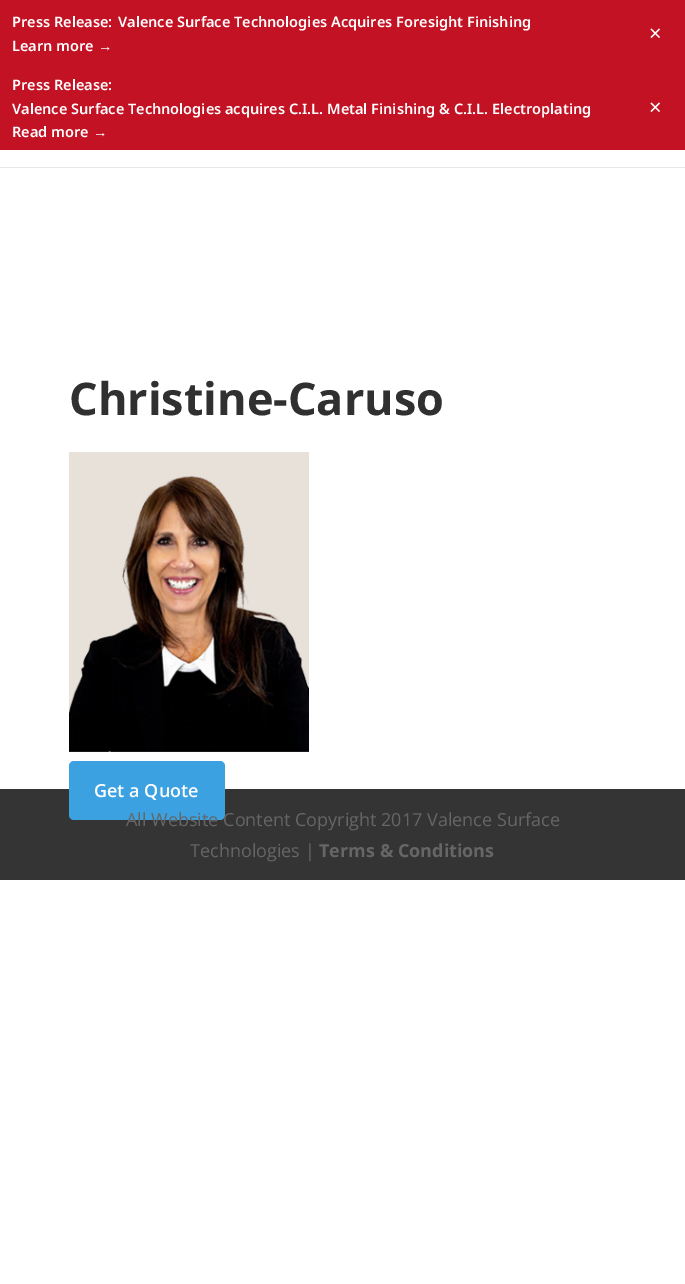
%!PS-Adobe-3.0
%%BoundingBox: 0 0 685 1284
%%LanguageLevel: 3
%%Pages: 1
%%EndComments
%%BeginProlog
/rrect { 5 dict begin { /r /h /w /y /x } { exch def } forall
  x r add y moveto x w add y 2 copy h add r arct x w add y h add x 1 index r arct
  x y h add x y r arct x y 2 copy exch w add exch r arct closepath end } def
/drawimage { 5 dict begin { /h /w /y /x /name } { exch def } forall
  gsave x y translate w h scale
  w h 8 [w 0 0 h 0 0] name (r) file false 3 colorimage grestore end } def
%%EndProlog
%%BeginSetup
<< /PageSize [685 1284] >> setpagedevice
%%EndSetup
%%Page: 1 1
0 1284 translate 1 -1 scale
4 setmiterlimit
1 setgray
0 0 685 1284 rectfill
0.765 0.071 0.141 setrgbcolor
0 0 685 150 rectfill
0.902 setgray
0 167 685 1 rectfill
(images/1.raw) 69 452 240 300 drawimage
0.204 setgray
0 789 685 91 rectfill
0.231 0.631 0.878 setrgbcolor
69 761 156 59 5 rrect fill
/NotoSans-SemiBold [14.5 0 0 -14.5 0 0] selectfont
1 setgray
12 27 moveto (Press Release:) show
118 27 moveto (Valence Surface Technologies Acquires Foresight Finishing) show
12 51 moveto (Learn more) show
/LiberationSans-Bold [14.5 0 0 -14.5 0 0] selectfont
98 51 moveto (→) show
/NotoSans-Regular [22 0 0 -22 0 0] selectfont
649 41 moveto (×) show
/NotoSans-SemiBold [14.5 0 0 -14.5 0 0] selectfont
12 90 moveto (Press Release:) show
12 114 moveto (Valence Surface Technologies acquires C.I.L. Metal Finishing & C.I.L. Electroplating) show
12 137 moveto (Read more) show
/LiberationSans-Bold [14.5 0 0 -14.5 0 0] selectfont
93 137 moveto (→) show
/NotoSans-Regular [22 0 0 -22 0 0] selectfont
649 115 moveto (×) show
/OpenSans-Bold [45 0 0 -45 0 0] selectfont
0.188 setgray
69 415 moveto (Christine-Caruso) show
/OpenSans-SemiBold [18 0 0 -18 0 0] selectfont
1 setgray
94 797 moveto (Get a Quote) show
/OpenSans-Regular [18 0 0 -18 0 0] selectfont
0.4 setgray
126 826 moveto (All Website Content Copyright 2017 Valence Surface) show
190 857 moveto (Technologies |) show
/OpenSans-Bold [18 0 0 -18 0 0] selectfont
319 857 moveto (Terms & Conditions) show
showpage
%%EOF
